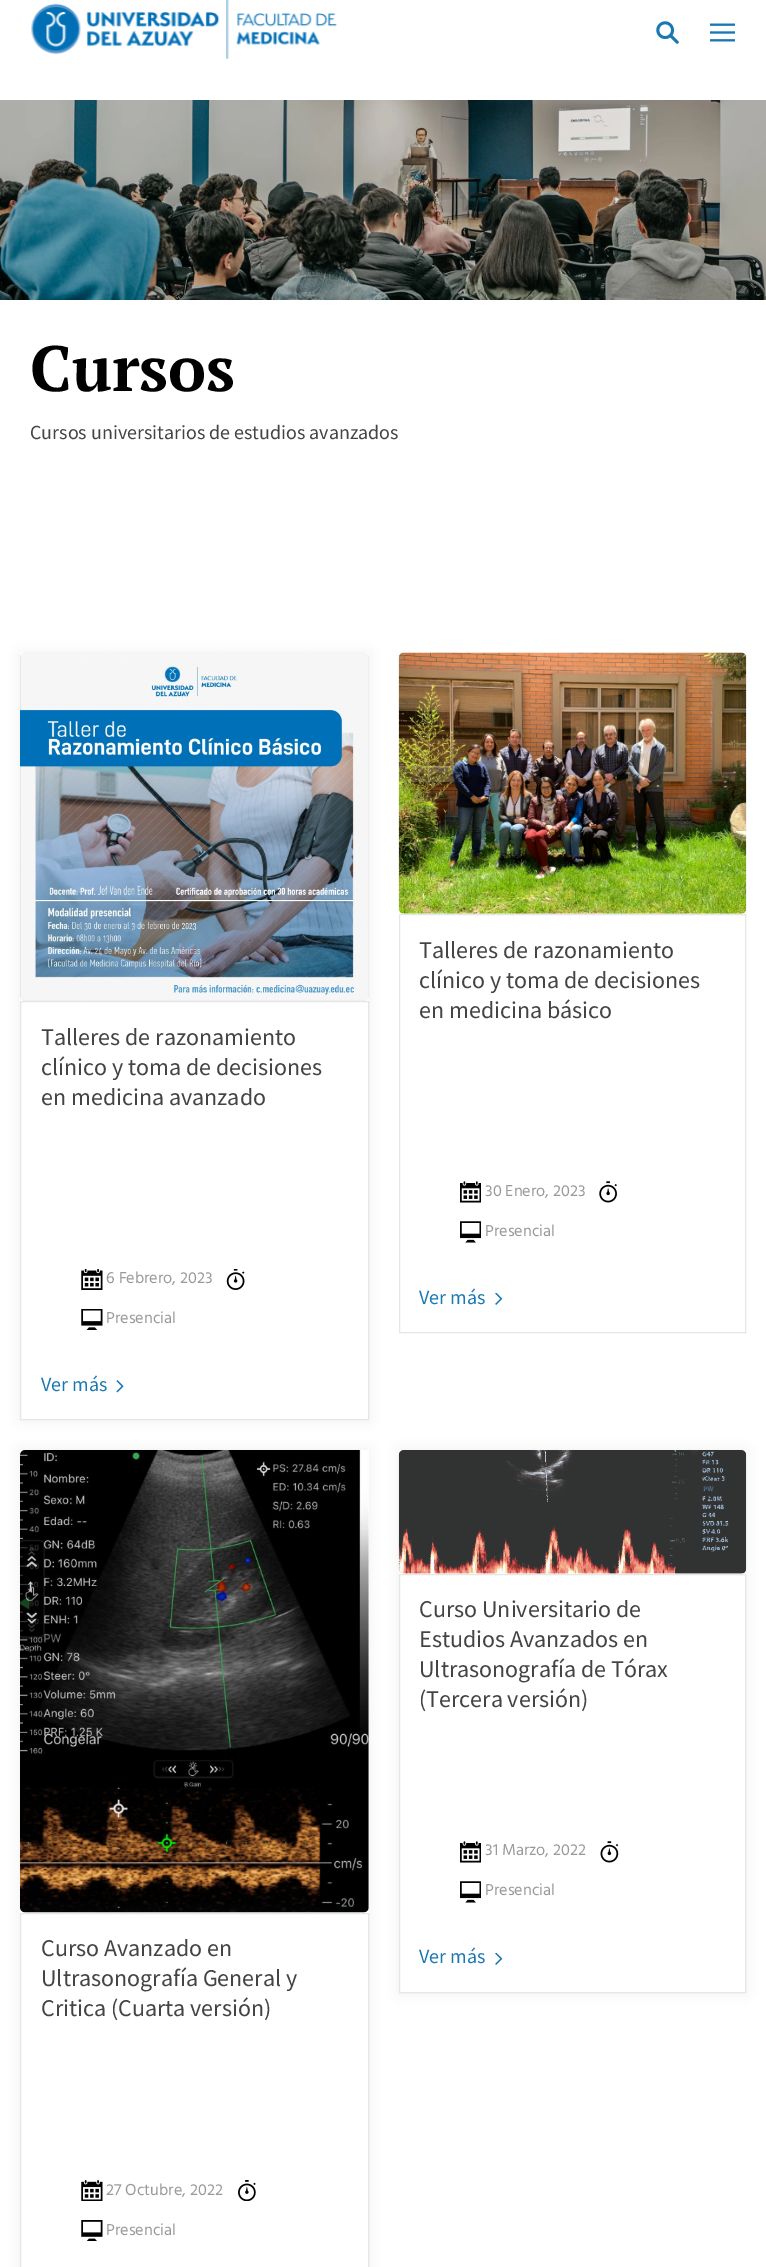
%!PS-Adobe-3.0
%%BoundingBox: 0 0 766 2267
%%LanguageLevel: 3
%%Pages: 1
%%EndComments
%%BeginProlog
/setalpha { dup .setfillconstantalpha .setstrokeconstantalpha } def
/rrect { 5 dict begin { /r /h /w /y /x } { exch def } forall
  x r add y moveto x w add y 2 copy h add r arct x w add y h add x 1 index r arct
  x y h add x y r arct x y 2 copy exch w add exch r arct closepath end } def
/softshadow { 12 dict begin { /a /b /q /h /w /y /x } { exch def } forall gsave /was 0 def
  9 -2 -9 { dup b mul 4 div /e exch def 1 sub .425 mul 2.718 exch exp 1 add a .99 .min exch div /now exch def
    1 1 now sub 1 was sub div sub setalpha /was now def
    w h .min e 2 mul add 0 gt { x e sub y e sub w e 2 mul add h e 2 mul add
      q e add b .6 mul add w h .min 2 div e add .min 0 .max rrect fill } if } for grestore end } def
/drawimage { 5 dict begin { /h /w /y /x /name } { exch def } forall
  gsave x y translate w h scale
  w h 8 [w 0 0 h 0 0] name (r) file false 3 colorimage grestore end } def
%%EndProlog
%%BeginSetup
<< /PageSize [766 2267] /PageUsesTransparency true >> setpagedevice
%%EndSetup
%%Page: 1 1
0 .pushpdf14devicefilter
0 2267 translate 1 -1 scale
4 setmiterlimit
1 setgray
0 0 766 2267 rectfill
(images/1.raw) 31 0 306 59 drawimage
(images/2.raw) 656 21 23 23 drawimage
(images/3.raw) 710 23 25 19 drawimage
(images/4.raw) 0 100 766 200 drawimage
0.933 setgray
20 653 349 767 0 6 1 softshadow
(images/5.raw) 20 652 349 349 drawimage
1 setgray
newpath 20.5 1001.5 moveto 368.5 1001.5 lineto 368.5 1419.5 lineto 20.5 1419.5 lineto closepath gsave fill grestore
0.902 setgray
stroke
(images/6.raw) 81 1269 22 21 drawimage
(images/7.raw) 226 1269 19 21 drawimage
(images/8.raw) 81 1309 22 21 drawimage
(images/9.raw) 116 1380 8 13 drawimage
(images/10.raw) 398 652 349 262 drawimage
399.5 914.5 346 418 rectstroke
(images/11.raw) 460 1181 21 22 drawimage
(images/12.raw) 599 1181 18 22 drawimage
(images/13.raw) 460 1221 21 22 drawimage
(images/14.raw) 495 1293 8 12 drawimage
0.933 setgray
399 1450 347 543 0 6 1 softshadow
(images/15.raw) 398 1450 349 124 drawimage
1 setgray
newpath 399.5 1574.5 moveto 745.5 1574.5 lineto 745.5 1992.5 lineto 399.5 1992.5 lineto closepath gsave fill grestore
0.902 setgray
stroke
(images/11.raw) 460 1841 21 22 drawimage
(images/16.raw) 600 1841 19 22 drawimage
(images/13.raw) 460 1881 21 22 drawimage
(images/14.raw) 495 1953 8 12 drawimage
0.933 setgray
20 1450 349 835 0 6 1 softshadow
(images/17.raw) 20 1450 349 463 drawimage
1 setgray
newpath 20.5 1913.5 moveto 368.5 1913.5 lineto 368.5 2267.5 lineto 20.5 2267.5 lineto closepath gsave fill grestore
0.902 setgray
stroke
(images/18.raw) 81 2180 22 21 drawimage
(images/19.raw) 238 2180 18 21 drawimage
(images/20.raw) 81 2220 22 21 drawimage
/PTSerif-Bold [64 0 0 -64 0 0] selectfont
0 setgray
30 391 moveto (Cursos) show
/SourceSansPro-Regular [20 0 0 -20 0 0] selectfont
0.267 setgray
30 439 moveto (Cursos universitarios de estudios avanzados) show
/SourceSansPro-Regular [24 0 0 -24 0 0] selectfont
41 1045 moveto (Talleres de razonamiento) show
41 1075 moveto (clínico y toma de decisiones) show
41 1105 moveto (en medicina avanzado) show
/Hind-Regular [16.25 0 0 -16.25 0 0] selectfont
0.6 setgray
106 1283 moveto (6 Febrero, 2023) show
106 1323 moveto (Presencial) show
/SourceSansPro-Regular [20 0 0 -20 0 0] selectfont
0.098 0.471 0.702 setrgbcolor
41 1391 moveto (Ver más) show
/SourceSansPro-Regular [24 0 0 -24 0 0] selectfont
0.267 setgray
419 958 moveto (Talleres de razonamiento) show
419 988 moveto (clínico y toma de decisiones) show
419 1018 moveto (en medicina básico) show
/Hind-Regular [16.25 0 0 -16.25 0 0] selectfont
0.6 setgray
485 1196 moveto (30 Enero, 2023) show
485 1236 moveto (Presencial) show
/SourceSansPro-Regular [20 0 0 -20 0 0] selectfont
0.098 0.471 0.702 setrgbcolor
419 1304 moveto (Ver más) show
/SourceSansPro-Regular [24 0 0 -24 0 0] selectfont
0.267 setgray
419 1617 moveto (Curso Universitario de) show
419 1647 moveto (Estudios Avanzados en) show
419 1677 moveto (Ultrasonografía de Tórax) show
419 1707 moveto (\(Tercera versión\)) show
/Hind-Regular [16.25 0 0 -16.25 0 0] selectfont
0.6 setgray
485 1855 moveto (31 Marzo, 2022) show
485 1895 moveto (Presencial) show
/SourceSansPro-Regular [20 0 0 -20 0 0] selectfont
0.098 0.471 0.702 setrgbcolor
419 1963 moveto (Ver más) show
/SourceSansPro-Regular [24 0 0 -24 0 0] selectfont
0.267 setgray
41 1956 moveto (Curso Avanzado en) show
41 1986 moveto (Ultrasonografía General y) show
41 2016 moveto (Critica \(Cuarta versión\)) show
/Hind-Regular [16.25 0 0 -16.25 0 0] selectfont
0.6 setgray
106 2195 moveto (27 Octubre, 2022) show
106 2235 moveto (Presencial) show
.poppdf14devicefilter showpage
%%EOF
